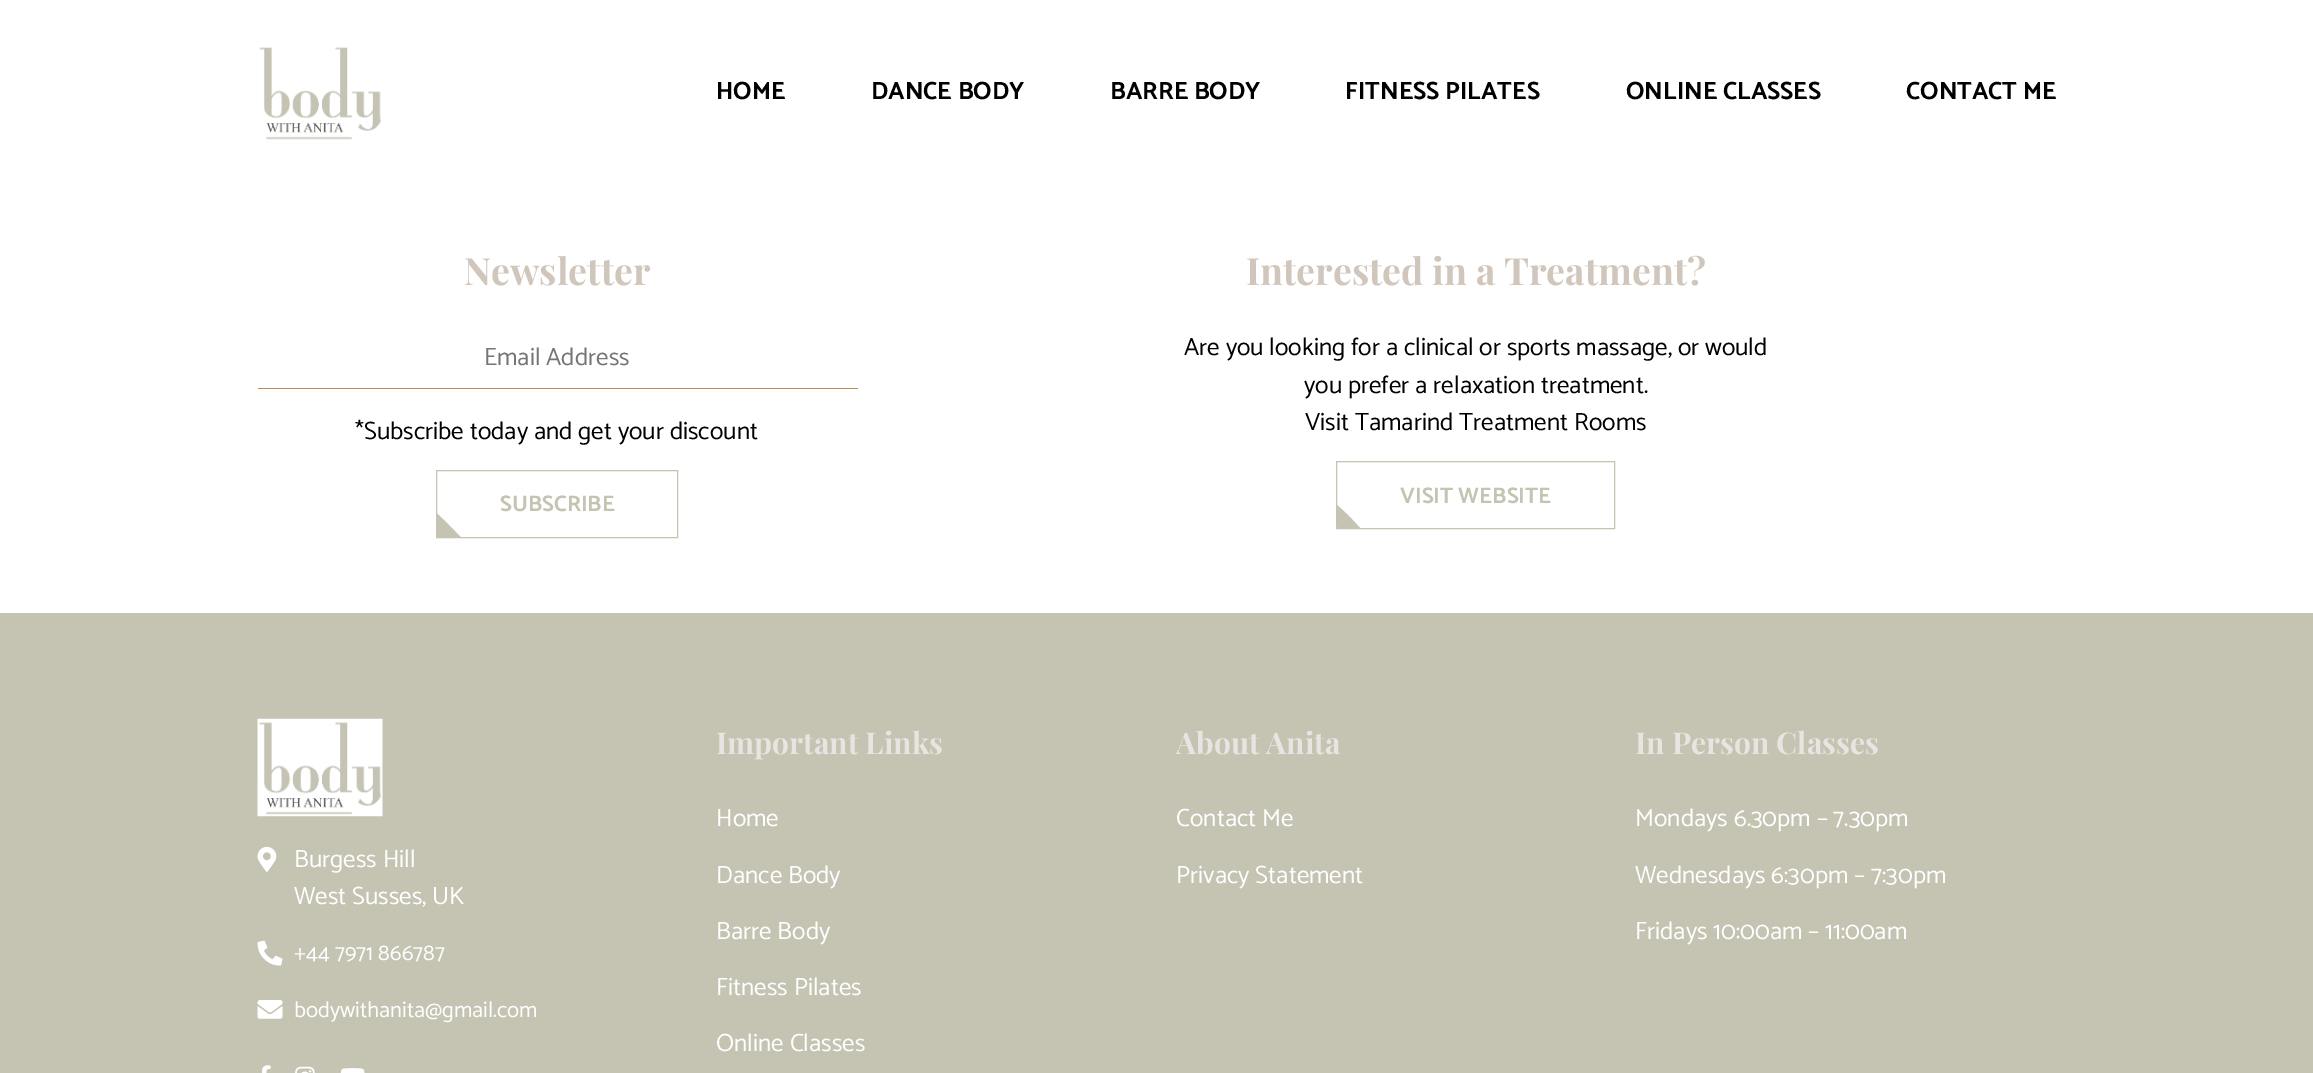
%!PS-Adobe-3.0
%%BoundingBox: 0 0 2313 1073
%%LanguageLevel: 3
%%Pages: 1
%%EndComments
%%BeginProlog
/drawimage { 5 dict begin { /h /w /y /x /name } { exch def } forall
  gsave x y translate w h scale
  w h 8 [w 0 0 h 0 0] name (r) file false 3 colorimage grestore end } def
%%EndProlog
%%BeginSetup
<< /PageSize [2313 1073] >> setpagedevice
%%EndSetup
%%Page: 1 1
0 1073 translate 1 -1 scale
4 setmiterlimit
1 setgray
0 0 2313 1073 rectfill
(images/1.raw) 259 47 123 93 drawimage
0.741 0.561 0.325 setrgbcolor
258 388 600 1 rectfill
0.773 0.765 0.698 setrgbcolor
436.5 470.5 241 67 rectstroke
newpath 461 537.5 moveto 436 537.5 lineto 449 525 lineto closepath fill
newpath 436 537.5 moveto 436 512.5 lineto 449 525 lineto closepath fill
1336.5 461.5 278 67 rectstroke
newpath 1361 529 moveto 1336 529 lineto 1349 516 lineto closepath fill
newpath 1336 529 moveto 1336 504 lineto 1349 516 lineto closepath fill
0 613 2313 460 rectfill
(images/2.raw) 257 718 126 99 drawimage
(images/3.raw) 257 846 20 26 drawimage
(images/4.raw) 257 940 26 26 drawimage
(images/5.raw) 257 1000 26 19 drawimage
(images/6.raw) 262 1065 9 8 drawimage
(images/7.raw) 295 1066 20 7 drawimage
(images/8.raw) 340 1068 25 5 drawimage
/Catamaran-Bold [25 0 0 -25 0 0] selectfont
0 setgray
716 99 moveto (HOME) show
871 99 moveto (DANCE BODY) show
1110 99 moveto (BARRE BODY) show
1345 99 moveto (FITNESS PILATES) show
1626 99 moveto (ONLINE CLASSES) show
1906 99 moveto (CONTACT ME) show
/PlayfairDisplay-Bold [37.5 0 0 -37.5 0 0] selectfont
0.82 0.776 0.737 setrgbcolor
464 285 moveto (Newsletter) show
/Catamaran-Regular [25 0 0 -25 0 0] selectfont
0.459 setgray
484 365 moveto (Email Address) show
0 setgray
355 439 moveto (*Subscribe today and get your discount) show
/Catamaran-Bold [22.5 0 0 -22.5 0 0] selectfont
0.773 0.765 0.698 setrgbcolor
500 511 moveto (SUBSCRIBE) show
/PlayfairDisplay-Bold [37.5 0 0 -37.5 0 0] selectfont
0.82 0.776 0.737 setrgbcolor
1246 285 moveto (Interested in a Treatment?) show
/Catamaran-Regular [25 0 0 -25 0 0] selectfont
0 setgray
1184 355 moveto (Are you looking for a clinical or sports massage, or would) show
1304 393 moveto (you prefer a relaxation treatment.) show
1305 430 moveto (Visit Tamarind Treatment Rooms) show
/Catamaran-Bold [22.5 0 0 -22.5 0 0] selectfont
0.773 0.765 0.698 setrgbcolor
1400 503 moveto (VISIT WEBSITE) show
/Catamaran-Regular [25 0 0 -25 0 0] selectfont
1 setgray
294 867 moveto (Burgess Hill) show
294 904 moveto (West Susses, UK) show
/Catamaran-Regular [22.5 0 0 -22.5 0 0] selectfont
294 960 moveto (+44 7971 866787) show
294 1017 moveto (bodywithanita@gmail.com) show
/PlayfairDisplay-Bold [30 0 0 -30 0 0] selectfont
0.914 0.894 0.882 setrgbcolor
716 754 moveto (Important Links) show
/Catamaran-Regular [25 0 0 -25 0 0] selectfont
1 setgray
716 826 moveto (Home) show
716 883 moveto (Dance Body) show
716 939 moveto (Barre Body) show
716 995 moveto (Fitness Pilates) show
716 1051 moveto (Online Classes) show
/PlayfairDisplay-Bold [30 0 0 -30 0 0] selectfont
0.914 0.894 0.882 setrgbcolor
1176 754 moveto (About Anita) show
/Catamaran-Regular [25 0 0 -25 0 0] selectfont
1 setgray
1176 826 moveto (Contact Me) show
1176 883 moveto (Privacy Statement) show
/PlayfairDisplay-Bold [30 0 0 -30 0 0] selectfont
0.914 0.894 0.882 setrgbcolor
1635 754 moveto (In Person Classes) show
/Catamaran-Regular [25 0 0 -25 0 0] selectfont
1 setgray
1635 826 moveto (Mondays 6.30pm – 7.30pm) show
1635 883 moveto (Wednesdays 6:30pm – 7:30pm) show
1635 939 moveto (Fridays 10:00am – 11:00am) show
showpage
%%EOF
